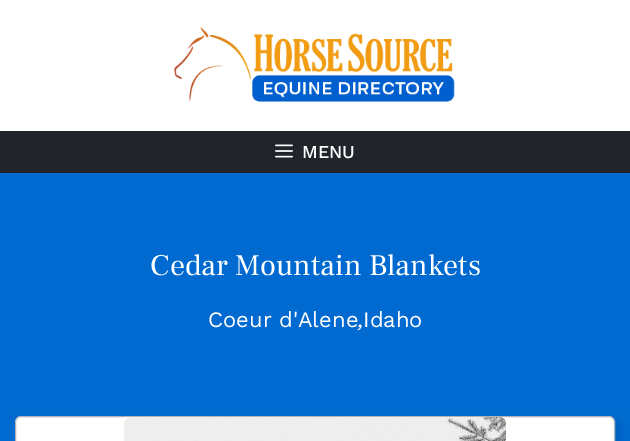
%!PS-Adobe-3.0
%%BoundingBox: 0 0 630 441
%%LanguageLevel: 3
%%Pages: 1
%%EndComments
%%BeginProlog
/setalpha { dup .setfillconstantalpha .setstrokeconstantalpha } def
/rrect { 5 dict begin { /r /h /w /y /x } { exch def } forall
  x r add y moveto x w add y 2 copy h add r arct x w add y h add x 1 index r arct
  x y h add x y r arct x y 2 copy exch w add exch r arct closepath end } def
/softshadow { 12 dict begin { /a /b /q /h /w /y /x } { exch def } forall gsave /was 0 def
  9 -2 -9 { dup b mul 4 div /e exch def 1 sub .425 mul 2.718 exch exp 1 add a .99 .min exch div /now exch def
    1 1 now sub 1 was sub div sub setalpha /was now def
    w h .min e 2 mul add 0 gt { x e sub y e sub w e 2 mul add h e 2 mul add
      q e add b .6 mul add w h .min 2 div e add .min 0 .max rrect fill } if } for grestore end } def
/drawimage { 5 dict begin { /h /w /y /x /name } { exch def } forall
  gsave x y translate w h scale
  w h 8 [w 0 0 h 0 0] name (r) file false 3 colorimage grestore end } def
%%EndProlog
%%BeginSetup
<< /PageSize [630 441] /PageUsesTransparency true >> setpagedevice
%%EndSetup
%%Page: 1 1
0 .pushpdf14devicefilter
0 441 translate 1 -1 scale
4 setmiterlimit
1 setgray
0 0 630 441 rectfill
(images/1.raw) 174 27 281 75 drawimage
0.129 0.141 0.165 setrgbcolor
0 131 630 42 rectfill
(images/2.raw) 275 144 18 14 drawimage
0 0.416 0.816 setrgbcolor
0 173 630 268 rectfill
0 setgray
20 421 600 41 6 5 0.1 softshadow
1 setgray
15.5 416.5 599 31 5.5 rrect gsave fill grestore
0.698 0.698 0.745 setrgbcolor
stroke
(images/3.raw) 124 417 382 24 drawimage
/WorkSans-Medium [18 0 0 -18 0 0] selectfont
1 setgray
302 158 moveto (MENU) show
/FrankRuhlLibre-Regular [30 0 0 -30 0 0] selectfont
150 275 moveto (Cedar Mountain Blankets) show
/WorkSans-Regular [22 0 0 -22 0 0] selectfont
208 327 moveto (Coeur d'Alene) show
/WorkSans-Italic [22 0 0 -22 0 0] selectfont
358 327 moveto (,) show
/WorkSans-Regular [22 0 0 -22 0 0] selectfont
363 327 moveto (Idaho) show
.poppdf14devicefilter showpage
%%EOF
